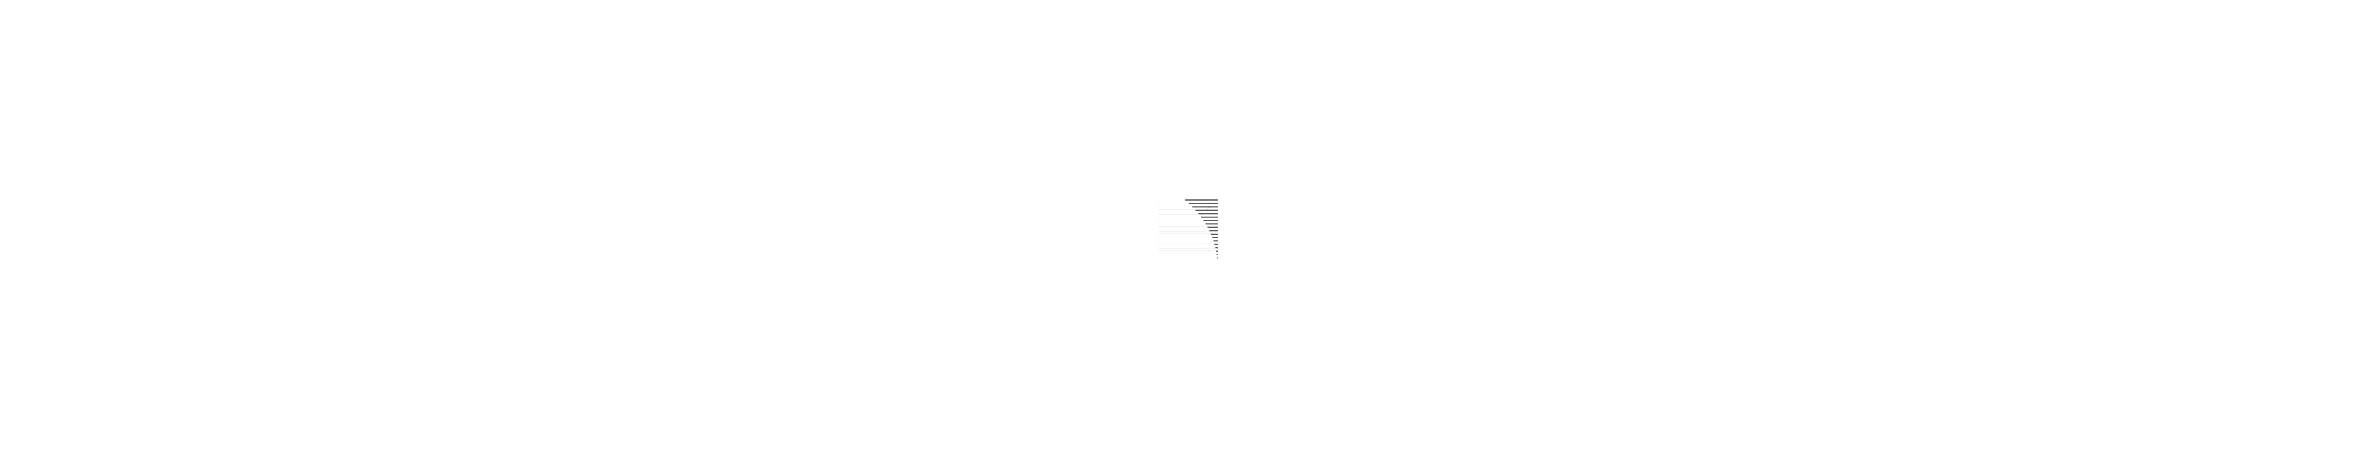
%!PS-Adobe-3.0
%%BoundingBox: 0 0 2372 457
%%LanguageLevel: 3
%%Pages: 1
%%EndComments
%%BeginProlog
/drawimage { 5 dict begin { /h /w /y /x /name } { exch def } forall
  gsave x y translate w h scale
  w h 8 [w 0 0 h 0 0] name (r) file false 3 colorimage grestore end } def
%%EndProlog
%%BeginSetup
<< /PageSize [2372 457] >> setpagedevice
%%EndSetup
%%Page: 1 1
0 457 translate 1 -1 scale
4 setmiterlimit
1 setgray
0 0 2372 457 rectfill
(images/1.raw) 1158 199 60 60 drawimage
showpage
%%EOF
